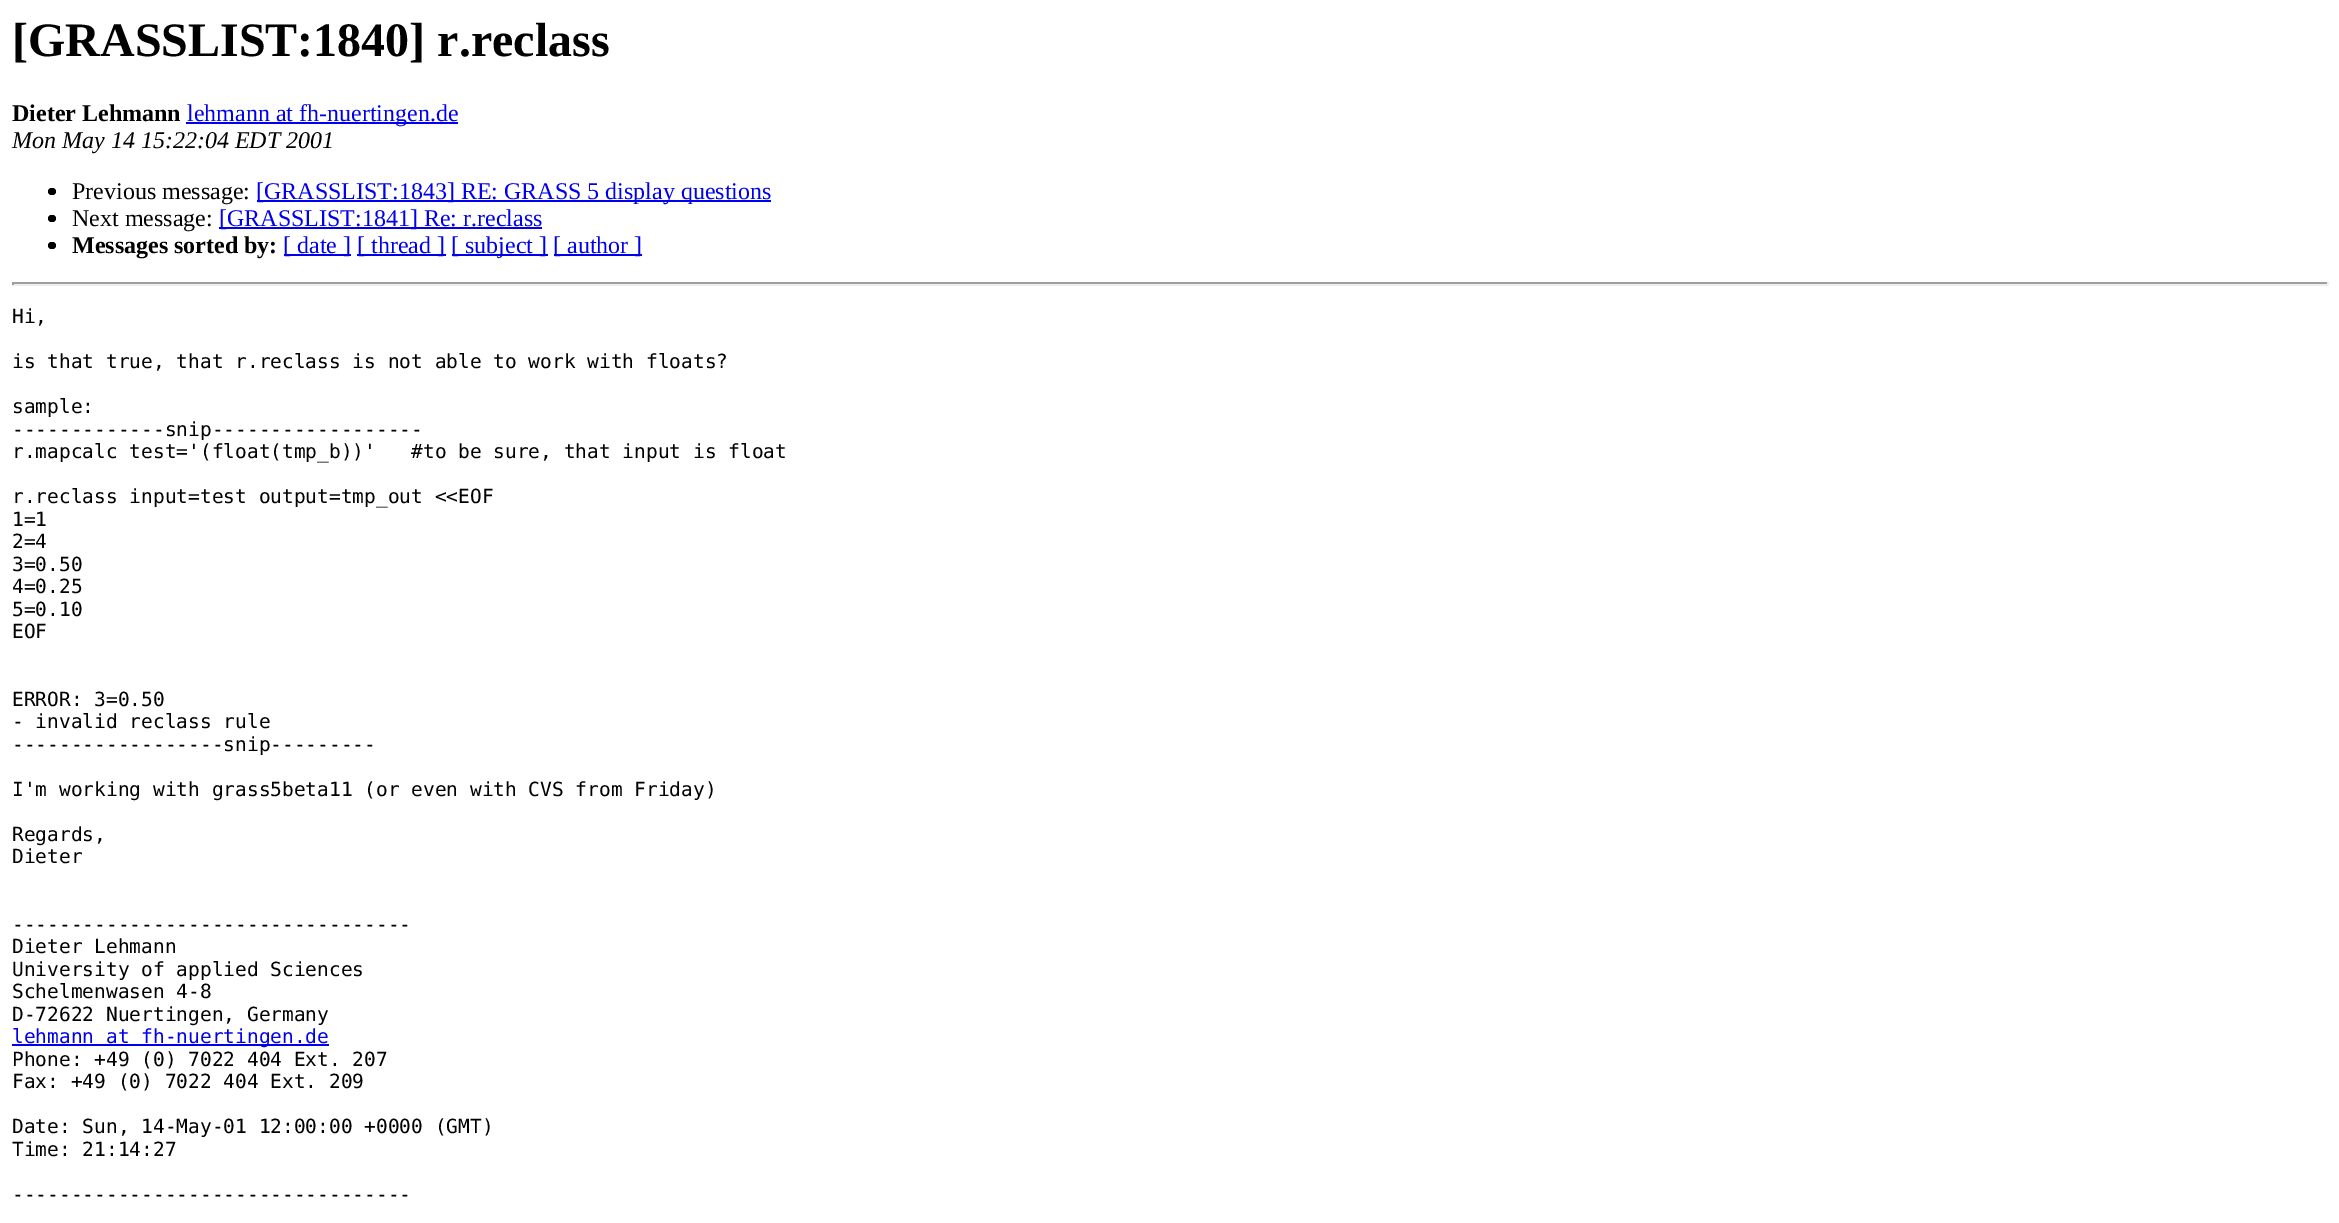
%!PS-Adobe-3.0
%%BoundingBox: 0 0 2339 1223
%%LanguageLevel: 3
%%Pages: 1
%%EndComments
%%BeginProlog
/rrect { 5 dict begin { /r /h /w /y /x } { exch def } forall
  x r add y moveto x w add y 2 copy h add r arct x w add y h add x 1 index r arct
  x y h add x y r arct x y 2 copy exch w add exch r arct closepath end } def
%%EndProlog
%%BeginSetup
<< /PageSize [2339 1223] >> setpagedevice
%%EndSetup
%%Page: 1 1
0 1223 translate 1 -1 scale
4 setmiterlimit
1 setgray
0 0 2339 1223 rectfill
0 0 0.933 setrgbcolor
186 122 272 2 rectfill
0 setgray
48 188 8 7 3.5 rrect fill
0 0 0.933 setrgbcolor
257 200 514 2 rectfill
0 setgray
48 215 8 7 3.5 rrect fill
0 0 0.933 setrgbcolor
219 227 323 2 rectfill
0 setgray
48 242 8 7 3.5 rrect fill
0 0 0.933 setrgbcolor
284 254 67 2 rectfill
357 254 89 2 rectfill
452 254 96 2 rectfill
554 254 88 2 rectfill
0.624 setgray
12 282 2316 2 rectfill
0.933 setgray
2327 282 2 3 rectfill
12 284 2316 2 rectfill
0.624 setgray
12 282 2 3 rectfill
0 0 0.933 setrgbcolor
12 1044 317 2 rectfill
/LiberationSerif-Bold [48 0 0 -48 0 0] selectfont
0 setgray
12 56 moveto ([GRASSLIST:1840] r.reclass) show
/LiberationSerif-Bold [24 0 0 -24 0 0] selectfont
12 121 moveto (Dieter Lehmann) show
/LiberationSerif-Regular [24 0 0 -24 0 0] selectfont
0 0 0.933 setrgbcolor
187 121 moveto (lehmann at fh-nuertingen.de) show
/LiberationSerif-Italic [24 0 0 -24 0 0] selectfont
0 setgray
12 148 moveto (Mon May 14 15:22:04 EDT 2001) show
/LiberationSerif-Regular [24 0 0 -24 0 0] selectfont
72 199 moveto (Previous message:) show
0 0 0.933 setrgbcolor
256 199 moveto ([GRASSLIST:1843] RE: GRASS 5 display questions) show
0 setgray
72 226 moveto (Next message:) show
0 0 0.933 setrgbcolor
219 226 moveto ([GRASSLIST:1841] Re: r.reclass) show
/LiberationSerif-Bold [24 0 0 -24 0 0] selectfont
0 setgray
72 253 moveto (Messages sorted by:) show
/LiberationSerif-Regular [24 0 0 -24 0 0] selectfont
0 0 0.933 setrgbcolor
283 253 moveto ([ date ]) show
357 253 moveto ([ thread ]) show
451 253 moveto ([ subject ]) show
553 253 moveto ([ author ]) show
/DejaVuSansMono-Regular [19.5 0 0 -19.5 0 0] selectfont
0 setgray
12 323 moveto (Hi,) show
12 368 moveto (is that true, that r.reclass is not able to work with floats?) show
12 413 moveto (sample:) show
12 436 moveto (-------------snip------------------) show
12 458 moveto (r.mapcalc test='\(float\(tmp_b\)\)'   #to be sure, that input is float) show
12 503 moveto (r.reclass input=test output=tmp_out <<EOF) show
12 526 moveto (1=1) show
12 548 moveto (2=4) show
12 571 moveto (3=0.50) show
12 593 moveto (4=0.25) show
12 616 moveto (5=0.10) show
12 638 moveto (EOF) show
12 706 moveto (ERROR: 3=0.50) show
12 728 moveto (- invalid reclass rule) show
12 751 moveto (------------------snip---------) show
12 796 moveto (I'm working with grass5beta11 \(or even with CVS from Friday\)) show
12 841 moveto (Regards,) show
12 863 moveto (Dieter) show
12 931 moveto (----------------------------------) show
12 953 moveto (Dieter Lehmann) show
12 976 moveto (University of applied Sciences) show
12 998 moveto (Schelmenwasen 4-8) show
12 1021 moveto (D-72622 Nuertingen, Germany) show
0 0 0.933 setrgbcolor
12 1043 moveto (lehmann at fh-nuertingen.de) show
0 setgray
12 1066 moveto (Phone: +49 \(0\) 7022 404 Ext. 207) show
12 1088 moveto (Fax: +49 \(0\) 7022 404 Ext. 209) show
12 1133 moveto (Date: Sun, 14-May-01 12:00:00 +0000 \(GMT\)) show
12 1156 moveto (Time: 21:14:27) show
12 1201 moveto (----------------------------------) show
showpage
%%EOF
